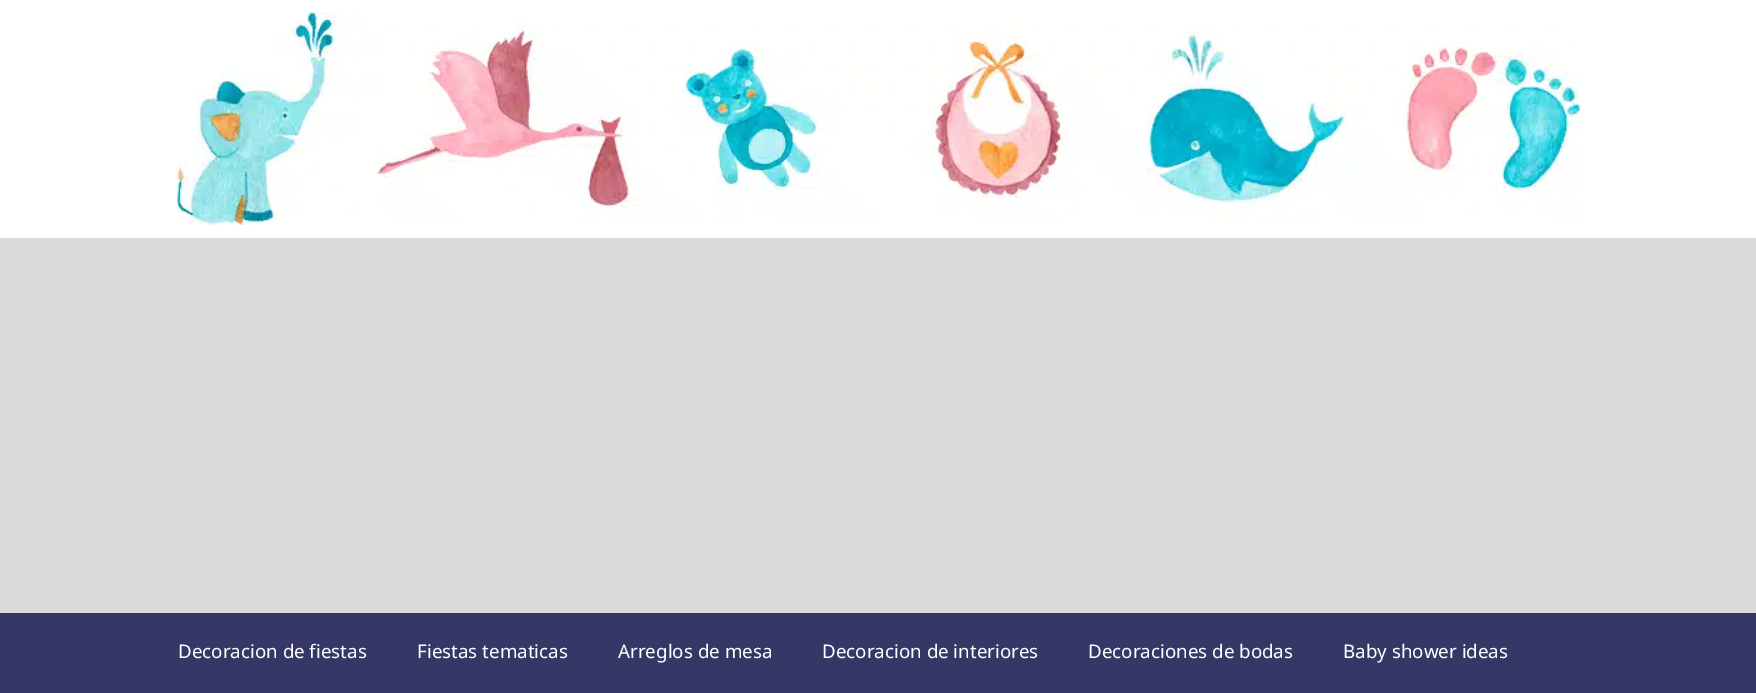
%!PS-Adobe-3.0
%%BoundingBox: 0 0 1756 693
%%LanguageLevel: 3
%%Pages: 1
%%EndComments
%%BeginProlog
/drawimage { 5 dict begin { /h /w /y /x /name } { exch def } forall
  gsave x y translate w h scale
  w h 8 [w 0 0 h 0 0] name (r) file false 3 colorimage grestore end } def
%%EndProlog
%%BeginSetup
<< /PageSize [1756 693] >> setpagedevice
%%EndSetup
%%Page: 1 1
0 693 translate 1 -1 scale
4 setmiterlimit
0.855 setgray
0 0 1756 693 rectfill
1 setgray
0 0 1756 238 rectfill
(images/1.raw) 177 12 1403 213 drawimage
0.208 0.22 0.4 setrgbcolor
0 613 1756 80 rectfill
/NotoSans-Regular [18.75 0 0 -18.75 0 0] selectfont
1 setgray
178 658 moveto (Decoracion de fiestas) show
417 658 moveto (Fiestas tematicas) show
618 658 moveto (Arreglos de mesa) show
822 658 moveto (Decoracion de interiores) show
1088 658 moveto (Decoraciones de bodas) show
1343 658 moveto (Baby shower ideas) show
showpage
%%EOF
